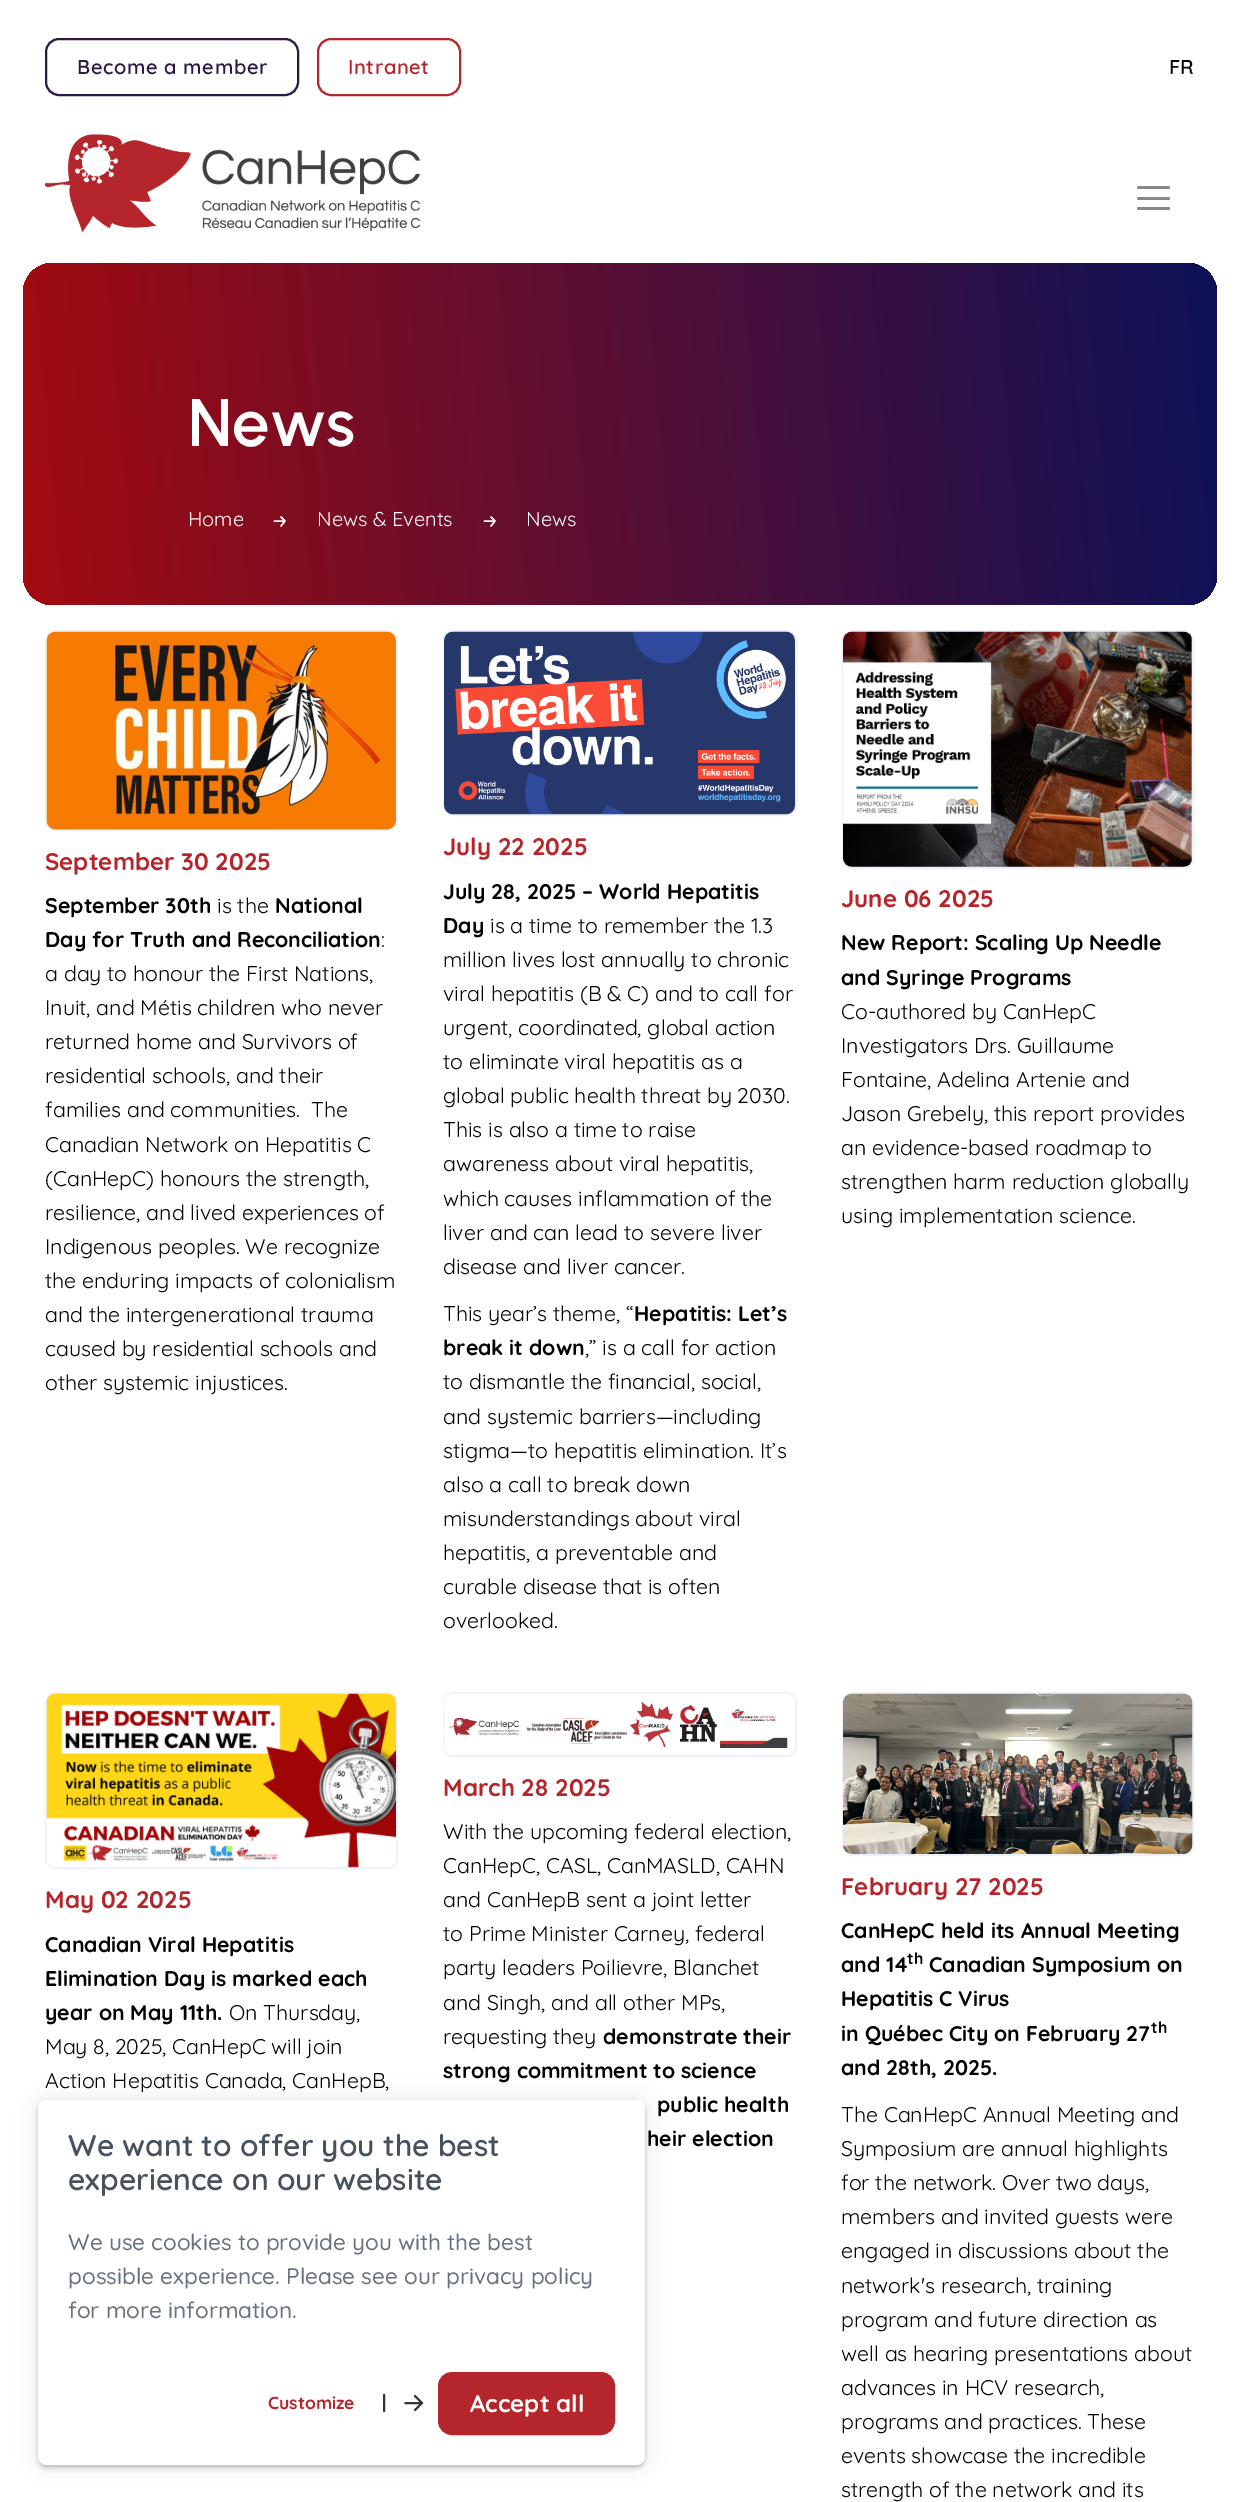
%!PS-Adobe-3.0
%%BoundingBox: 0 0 1238 2502
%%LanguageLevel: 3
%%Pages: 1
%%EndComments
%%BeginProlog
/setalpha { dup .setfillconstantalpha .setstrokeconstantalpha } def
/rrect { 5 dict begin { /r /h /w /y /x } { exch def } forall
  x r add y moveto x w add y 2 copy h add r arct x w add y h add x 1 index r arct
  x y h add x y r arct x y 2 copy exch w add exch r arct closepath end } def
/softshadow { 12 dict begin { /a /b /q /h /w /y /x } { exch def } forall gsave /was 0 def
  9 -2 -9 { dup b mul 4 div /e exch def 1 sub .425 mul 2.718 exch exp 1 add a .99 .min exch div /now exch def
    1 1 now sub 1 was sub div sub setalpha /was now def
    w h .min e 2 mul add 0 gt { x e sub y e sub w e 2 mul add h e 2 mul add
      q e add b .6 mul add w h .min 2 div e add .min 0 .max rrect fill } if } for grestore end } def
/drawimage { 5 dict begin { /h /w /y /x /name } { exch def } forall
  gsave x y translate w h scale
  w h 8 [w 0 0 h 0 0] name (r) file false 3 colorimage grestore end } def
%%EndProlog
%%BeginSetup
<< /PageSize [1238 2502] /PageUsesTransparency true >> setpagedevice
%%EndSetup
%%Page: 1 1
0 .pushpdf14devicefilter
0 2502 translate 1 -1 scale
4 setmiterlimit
1 setgray
0 0 1238 2502 rectfill
0.161 0.102 0.263 setrgbcolor
2 setlinewidth
46 39 252 56 13 rrect stroke
0.706 0.149 0.169 setrgbcolor
318 39 142 56 13 rrect stroke
(images/1.raw) 45 134 375 99 drawimage
0.533 setgray
1137 186 33 3 1.5 rrect fill
1137 197 33 3 1.5 rrect fill
1137 207 33 3 1.5 rrect fill
gsave 23 263 1194 342 30 rrect clip newpath
<< /ShadingType 2 /ColorSpace /DeviceRGB /Coords [12 487 1227 380] /Extend [true true] /Function << /FunctionType 2 /Domain [0 1] /C0 [0.639 0.043 0.063] /C1 [0.051 0.071 0.341] /N 1 >> >> shfill grestore
1 setgray
1.5 setlinewidth
1 setlinecap
1 setlinejoin
newpath 281 517 moveto 285 521 lineto 285 521 moveto 281 526 lineto 285 521 moveto 274.5 521 lineto stroke
newpath 491 517 moveto 495 521 lineto 495 521 moveto 491 526 lineto 495 521 moveto 484.5 521 lineto stroke
0.925 0.945 0.984 setrgbcolor
2 setlinewidth
0 setlinecap
0 setlinejoin
46 631 351 199 10 rrect stroke
(images/2.raw) 46 631 350 199 drawimage
444 631 352 184 10 rrect stroke
(images/3.raw) 444 631 351 184 drawimage
843 631 350 237 10 rrect stroke
(images/4.raw) 843 631 350 236 drawimage
46 1693 351 175 10 rrect stroke
(images/5.raw) 46 1693 350 175 drawimage
444 1693 352 63 10 rrect stroke
(images/6.raw) 444 1693 351 62 drawimage
843 1693 350 162 10 rrect stroke
(images/7.raw) 843 1693 350 161 drawimage
0 setgray
38 2100 607 365 9 11 0.1 softshadow
38 2103 607 365 9 2 0.2 softshadow
1 setgray
38 2100 607 365 9 rrect fill
0.208 setgray
2.1 setlinewidth
1 setlinecap
1 setlinejoin
newpath 415 2410 moveto 422 2403 lineto 422 2403 moveto 415 2396 lineto 422 2403 moveto 405.5 2403 lineto 384 2395 moveto 384 2411 lineto stroke
0.706 0.149 0.169 setrgbcolor
439 2373 175 61 13 rrect gsave fill grestore
2 setlinewidth
0 setlinecap
0 setlinejoin
stroke
/Quicksand-SemiBold [20 0 0 -20 0 0] selectfont
0.161 0.102 0.263 setrgbcolor
77 74 moveto 0.6 0 (Become a member) ashow
0.706 0.149 0.169 setrgbcolor
348 74 moveto 0.6 0 (Intranet) ashow
0 setgray
1169 74 moveto (FR) show
/Urbanist-SemiBold [67 0 0 -67 0 0] selectfont
1 setgray
188 446 moveto (News) show
/Quicksand-Regular [20 0 0 -20 0 0] selectfont
188 526 moveto (Home) show
317 526 moveto (News & Events) show
526 526 moveto (News) show
/Quicksand-Bold [24 0 0 -24 0 0] selectfont
0.706 0.149 0.169 setrgbcolor
45 870 moveto (September 30 2025) show
/Quicksand-Bold [21.25 0 0 -21.25 0 0] selectfont
0 setgray
45 913 moveto (September 30th) show
/Quicksand-Regular [21.25 0 0 -21.25 0 0] selectfont
217 913 moveto (is the) show
/Quicksand-Bold [21.25 0 0 -21.25 0 0] selectfont
275 913 moveto (National) show
45 947 moveto (Day for Truth and Reconciliation) show
/Quicksand-Regular [21.25 0 0 -21.25 0 0] selectfont
381 947 moveto (:) show
45 981 moveto (a day to honour the First Nations,) show
45 1015 moveto (Inuit, and Métis children who never) show
45 1049 moveto (returned home and Survivors of) show
45 1083 moveto (residential schools, and their) show
45 1117 moveto (families and communities.  The) show
45 1152 moveto (Canadian Network on Hepatitis C) show
45 1186 moveto (\(CanHepC\) honours the strength,) show
45 1220 moveto (resilience, and lived experiences of) show
45 1254 moveto (Indigenous peoples. We recognize) show
45 1288 moveto (the enduring impacts of colonialism) show
45 1322 moveto (and the intergenerational trauma) show
45 1356 moveto (caused by residential schools and) show
45 1390 moveto (other systemic injustices.) show
/Quicksand-Bold [24 0 0 -24 0 0] selectfont
0.706 0.149 0.169 setrgbcolor
443 855 moveto (July 22 2025) show
/Quicksand-Bold [21.25 0 0 -21.25 0 0] selectfont
0 setgray
443 899 moveto (July 28, 2025 – World Hepatitis) show
443 933 moveto (Day) show
/Quicksand-Regular [21.25 0 0 -21.25 0 0] selectfont
490 933 moveto (is a time to remember the 1.3) show
443 967 moveto (million lives lost annually to chronic) show
443 1001 moveto (viral hepatitis \(B & C\) and to call for) show
443 1035 moveto (urgent, coordinated, global action) show
443 1069 moveto (to eliminate viral hepatitis as a) show
443 1103 moveto (global public health threat by 2030.) show
443 1137 moveto (This is also a time to raise) show
443 1171 moveto (awareness about viral hepatitis,) show
443 1206 moveto (which causes inflammation of the) show
443 1240 moveto (liver and can lead to severe liver) show
443 1274 moveto (disease and liver cancer.) show
443 1321 moveto (This year’s theme, “) show
/Quicksand-Bold [21.25 0 0 -21.25 0 0] selectfont
634 1321 moveto (Hepatitis: Let’s) show
443 1355 moveto (break it down) show
/Quicksand-Regular [21.25 0 0 -21.25 0 0] selectfont
585 1355 moveto (,” is a call for action) show
443 1389 moveto (to dismantle the financial, social,) show
443 1424 moveto (and systemic barriers—including) show
443 1458 moveto (stigma—to hepatitis elimination. It’s) show
443 1492 moveto (also a call to break down) show
443 1526 moveto (misunderstandings about viral) show
443 1560 moveto (hepatitis, a preventable and) show
443 1594 moveto (curable disease that is often) show
443 1628 moveto (overlooked.) show
/Quicksand-Bold [24 0 0 -24 0 0] selectfont
0.706 0.149 0.169 setrgbcolor
841 907 moveto (June 06 2025) show
/Quicksand-Bold [21.25 0 0 -21.25 0 0] selectfont
0 setgray
841 950 moveto (New Report: Scaling Up Needle) show
841 985 moveto (and Syringe Programs) show
/Quicksand-Regular [21.25 0 0 -21.25 0 0] selectfont
841 1019 moveto (Co-authored by CanHepC) show
841 1053 moveto (Investigators Drs. Guillaume) show
841 1087 moveto (Fontaine, Adelina Artenie and) show
841 1121 moveto (Jason Grebely, this report provides) show
841 1155 moveto (an evidence-based roadmap to) show
841 1189 moveto (strengthen harm reduction globally) show
841 1223 moveto (using implementation science.) show
/Quicksand-Bold [24 0 0 -24 0 0] selectfont
0.706 0.149 0.169 setrgbcolor
45 1908 moveto (May 02 2025) show
/Quicksand-Bold [21.25 0 0 -21.25 0 0] selectfont
0 setgray
45 1952 moveto (Canadian Viral Hepatitis) show
45 1986 moveto (Elimination Day is marked each) show
45 2020 moveto (year on May 11th.) show
/Quicksand-Regular [21.25 0 0 -21.25 0 0] selectfont
229 2020 moveto (On Thursday,) show
45 2054 moveto (May 8, 2025, CanHepC will join) show
45 2088 moveto (Action Hepatitis Canada, CanHepB,) show
/Quicksand-Bold [24 0 0 -24 0 0] selectfont
0.706 0.149 0.169 setrgbcolor
443 1796 moveto (March 28 2025) show
/Quicksand-Regular [21.25 0 0 -21.25 0 0] selectfont
0 setgray
443 1839 moveto (With the upcoming federal election,) show
443 1873 moveto (CanHepC, CASL, CanMASLD, CAHN) show
443 1907 moveto (and CanHepB sent a joint letter) show
443 1941 moveto (to Prime Minister Carney, federal) show
443 1975 moveto (party leaders Poilievre, Blanchet) show
443 2010 moveto (and Singh, and all other MPs,) show
443 2044 moveto (requesting they) show
/Quicksand-Bold [21.25 0 0 -21.25 0 0] selectfont
603 2044 moveto (demonstrate their) show
443 2078 moveto (strong commitment to science) show
657 2112 moveto (public health) show
647 2146 moveto (heir election) show
/Quicksand-Bold [24 0 0 -24 0 0] selectfont
0.706 0.149 0.169 setrgbcolor
841 1895 moveto (February 27 2025) show
/Quicksand-Bold [21.25 0 0 -21.25 0 0] selectfont
0 setgray
841 1938 moveto (CanHepC held its Annual Meeting) show
841 1972 moveto (and 14) show
/Quicksand-Bold [16 0 0 -16 0 0] selectfont
907 1964 moveto (th) show
/Quicksand-Bold [21.25 0 0 -21.25 0 0] selectfont
929 1972 moveto (Canadian Symposium on) show
841 2006 moveto (Hepatitis C Virus) show
841 2041 moveto (in Québec City on February 27) show
/Quicksand-Bold [16 0 0 -16 0 0] selectfont
1151 2033 moveto (th) show
/Quicksand-Bold [21.25 0 0 -21.25 0 0] selectfont
841 2075 moveto (and 28th, 2025.) show
/Quicksand-Regular [21.25 0 0 -21.25 0 0] selectfont
841 2122 moveto (The CanHepC Annual Meeting and) show
841 2156 moveto (Symposium are annual highlights) show
841 2190 moveto (for the network. Over two days,) show
841 2224 moveto (members and invited guests were) show
841 2258 moveto (engaged in discussions about the) show
841 2293 moveto (network's research, training) show
841 2327 moveto (program and future direction as) show
841 2361 moveto (well as hearing presentations about) show
841 2395 moveto (advances in HCV research,) show
841 2429 moveto (programs and practices. These) show
841 2463 moveto (events showcase the incredible) show
841 2497 moveto (strength of the network and its) show
/Quicksand-SemiBold [30 0 0 -30 0 0] selectfont
0.282 0.322 0.369 setrgbcolor
68 2156 moveto (We want to offer you the best) show
68 2190 moveto (experience on our website) show
/Quicksand-Medium [22.5 0 0 -22.5 0 0] selectfont
0.404 0.451 0.502 setrgbcolor
68 2250 moveto (We use cookies to provide you with the best) show
68 2284 moveto (possible experience. Please see our privacy policy) show
68 2318 moveto (for more information.) show
/Quicksand-Bold [17.5 0 0 -17.5 0 0] selectfont
0.706 0.149 0.169 setrgbcolor
268 2409 moveto (Customize) show
/Quicksand-Bold [24 0 0 -24 0 0] selectfont
1 setgray
470 2412 moveto (Accept all) show
.poppdf14devicefilter showpage
%%EOF
